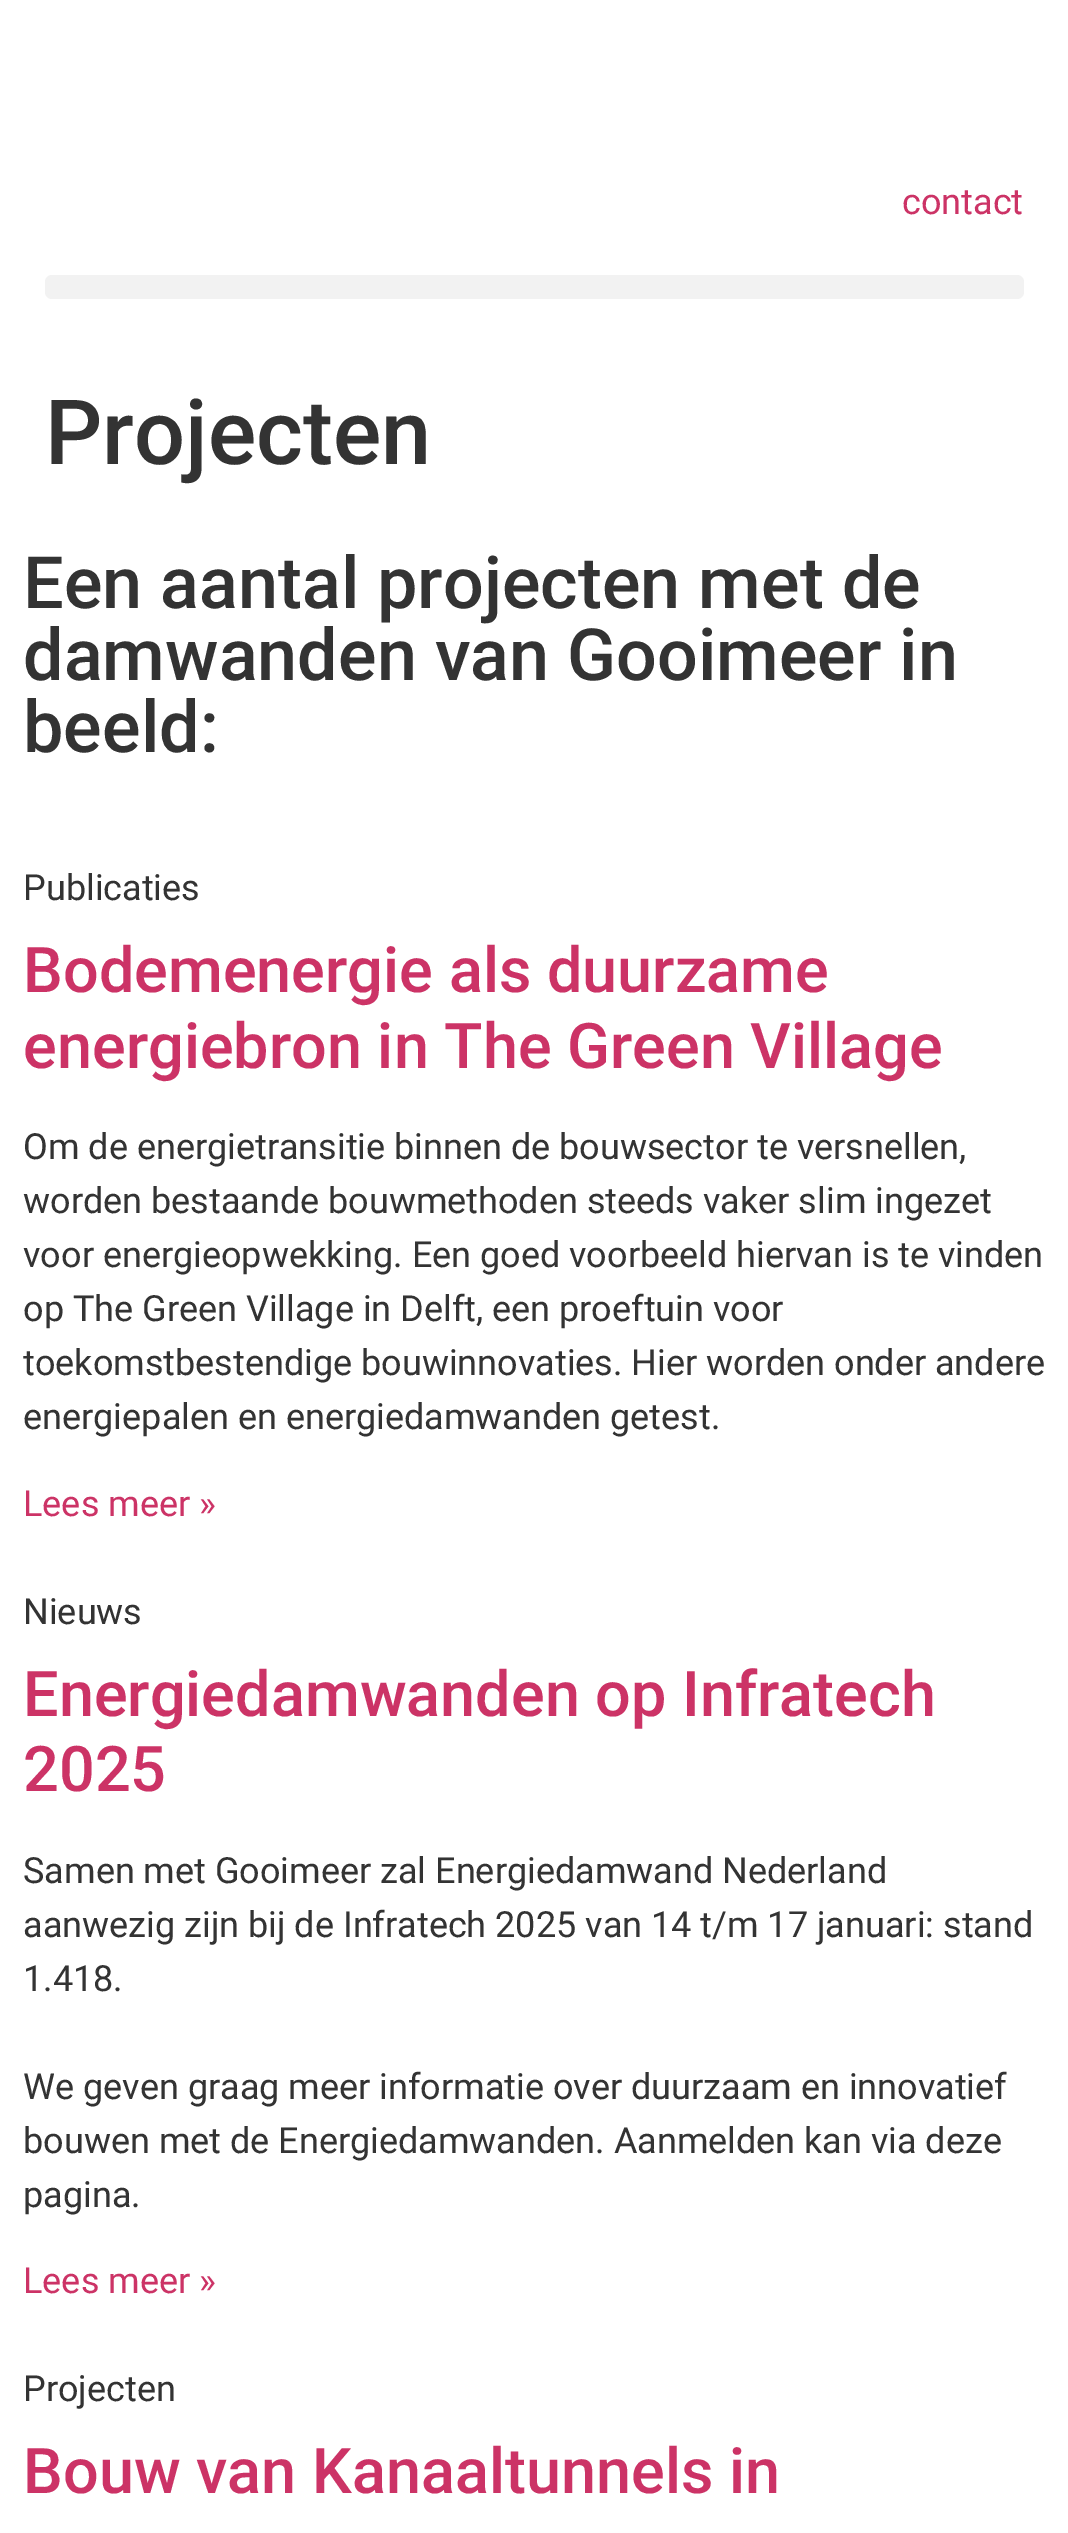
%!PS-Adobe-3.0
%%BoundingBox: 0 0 1068 2533
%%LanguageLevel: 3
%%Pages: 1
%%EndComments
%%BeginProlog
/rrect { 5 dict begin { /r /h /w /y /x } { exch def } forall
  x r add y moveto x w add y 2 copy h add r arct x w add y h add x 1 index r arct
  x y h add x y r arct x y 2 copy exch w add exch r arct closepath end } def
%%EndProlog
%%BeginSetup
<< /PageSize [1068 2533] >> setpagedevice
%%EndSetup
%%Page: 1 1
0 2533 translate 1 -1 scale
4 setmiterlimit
1 setgray
0 0 1068 2533 rectfill
0.949 setgray
45 275 979 24 7 rrect fill
/Roboto-Regular [36 0 0 -36 0 0] selectfont
0.8 0.2 0.4 setrgbcolor
902 214 moveto (contact) show
/Roboto-Medium [90 0 0 -90 0 0] selectfont
0.2 setgray
45 464 moveto (Projecten) show
/Roboto-Medium [72 0 0 -72 0 0] selectfont
23 608 moveto (Een aantal projecten met de) show
23 680 moveto (damwanden van Gooimeer in) show
23 752 moveto (beeld:) show
/Roboto-Regular [36 0 0 -36 0 0] selectfont
23 900 moveto (Publicaties) show
/Roboto-Medium [63 0 0 -63 0 0] selectfont
0.8 0.2 0.4 setrgbcolor
23 992 moveto (Bodemenergie als duurzame) show
23 1068 moveto (energiebron in The Green Village) show
/Roboto-Regular [36 0 0 -36 0 0] selectfont
0.2 setgray
23 1159 moveto (Om de energietransitie binnen de bouwsector te versnellen,) show
23 1213 moveto (worden bestaande bouwmethoden steeds vaker slim ingezet) show
23 1267 moveto (voor energieopwekking. Een goed voorbeeld hiervan is te vinden) show
23 1321 moveto (op The Green Village in Delft, een proeftuin voor) show
23 1375 moveto (toekomstbestendige bouwinnovaties. Hier worden onder andere) show
23 1429 moveto (energiepalen en energiedamwanden getest.) show
0.8 0.2 0.4 setrgbcolor
23 1516 moveto (Lees meer ») show
0.2 setgray
23 1624 moveto (Nieuws) show
/Roboto-Medium [63 0 0 -63 0 0] selectfont
0.8 0.2 0.4 setrgbcolor
23 1716 moveto (Energiedamwanden op Infratech) show
23 1791 moveto (2025) show
/Roboto-Regular [36 0 0 -36 0 0] selectfont
0.2 setgray
23 1883 moveto (Samen met Gooimeer zal Energiedamwand Nederland) show
23 1937 moveto (aanwezig zijn bij de Infratech 2025 van 14 t/m 17 januari: stand) show
23 1991 moveto (1.418.) show
23 2099 moveto (We geven graag meer informatie over duurzaam en innovatief) show
23 2153 moveto (bouwen met de Energiedamwanden. Aanmelden kan via deze) show
23 2207 moveto (pagina.) show
0.8 0.2 0.4 setrgbcolor
23 2293 moveto (Lees meer ») show
0.2 setgray
23 2401 moveto (Projecten) show
/Roboto-Medium [63 0 0 -63 0 0] selectfont
0.8 0.2 0.4 setrgbcolor
23 2493 moveto (Bouw van Kanaaltunnels in) show
showpage
%%EOF
